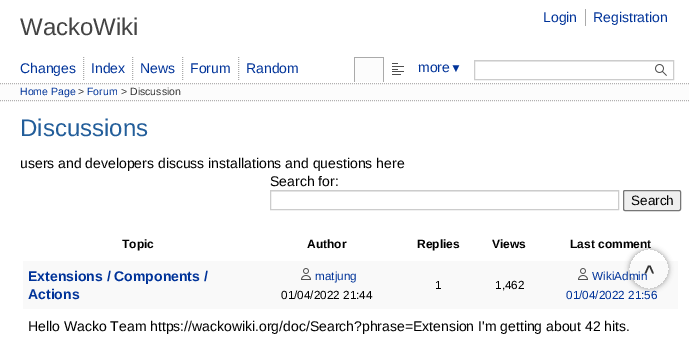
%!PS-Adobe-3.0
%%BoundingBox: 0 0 689 339
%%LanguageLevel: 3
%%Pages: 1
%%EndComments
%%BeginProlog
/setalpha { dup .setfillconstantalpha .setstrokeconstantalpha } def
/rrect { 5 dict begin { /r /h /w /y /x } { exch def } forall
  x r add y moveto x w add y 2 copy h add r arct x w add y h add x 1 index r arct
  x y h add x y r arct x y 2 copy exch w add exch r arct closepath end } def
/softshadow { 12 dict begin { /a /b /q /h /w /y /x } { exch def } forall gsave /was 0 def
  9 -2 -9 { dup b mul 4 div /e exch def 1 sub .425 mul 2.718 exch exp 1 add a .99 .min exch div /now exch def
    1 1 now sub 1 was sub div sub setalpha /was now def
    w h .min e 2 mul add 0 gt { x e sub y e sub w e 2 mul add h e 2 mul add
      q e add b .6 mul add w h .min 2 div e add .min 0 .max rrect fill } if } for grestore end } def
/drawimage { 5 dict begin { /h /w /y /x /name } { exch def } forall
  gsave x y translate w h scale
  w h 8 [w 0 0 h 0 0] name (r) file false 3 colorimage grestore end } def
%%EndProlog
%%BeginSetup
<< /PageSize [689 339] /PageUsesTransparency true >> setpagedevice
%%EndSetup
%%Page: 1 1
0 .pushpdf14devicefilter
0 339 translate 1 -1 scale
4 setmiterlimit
1 setgray
0 0 689 339 rectfill
0.667 setgray
585 9 1 17 rectfill
[1 1] 0 setdash
newpath 83.5 57 moveto 83.5 80 lineto stroke
newpath 132.5 57 moveto 132.5 80 lineto stroke
newpath 182.5 57 moveto 182.5 80 lineto stroke
newpath 238.5 57 moveto 238.5 80 lineto stroke
0.988 setgray
355 58 28 24 rectfill
0.667 setgray
354 57 30 1 rectfill
383 57 1 25 rectfill
354 57 1 25 rectfill
(images/1.raw) 392 63 12 12 drawimage
0.925 setgray
475 61 198 1 rectfill
0.8 setgray
[] 0 setdash
474.5 60.5 199 19 rectstroke
(images/2.raw) 655 64 12 12 drawimage
0.988 setgray
0 83 689 18 rectfill
0.698 0.69 0.69 setrgbcolor
[1 1] 0 setdash
newpath 0 83.5 moveto 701 83.5 lineto stroke
newpath 0 100.5 moveto 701 100.5 lineto stroke
0.976 setgray
23 261 655 48 rectfill
gsave
newpath 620 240 moveto 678 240 lineto 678 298 lineto 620 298 lineto closepath 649 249 moveto 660 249 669 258 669 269 curveto 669 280 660 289 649 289 curveto 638 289 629 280 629 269 curveto 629 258 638 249 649 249 curveto closepath eoclip newpath
0 setgray
629 249 40 40 20 2.5 0.3 softshadow
grestore
0.925 setgray
271 191 347 1 rectfill
0.8 setgray
[] 0 setdash
270.5 190.5 348 19 rectstroke
0.937 setgray
623.5 190.5 57 20 1.5 rrect gsave fill grestore
0.463 setgray
stroke
(images/3.raw) 301 268 10 12 drawimage
(images/3.raw) 578 268 10 12 drawimage
/LiberationSans-Regular [24 0 0 -24 0 0] selectfont
0.267 setgray
20 35 moveto (WackoWiki) show
/LiberationSans-Regular [14 0 0 -14 0 0] selectfont
0 0.2 0.6 setrgbcolor
543 22 moveto (Login) show
593 22 moveto (Registration) show
20 73 moveto (Changes) show
91 73 moveto (Index) show
140 73 moveto (News) show
190 73 moveto (Forum) show
246 73 moveto (Random) show
418 72 moveto (more) show
/LiberationSans-Regular [12 0 0 -12 0 0] selectfont
450 72 moveto (▼) show
/LiberationSans-Regular [10.5 0 0 -10.5 0 0] selectfont
20 95 moveto (Home Page) show
0.2 setgray
78 95 moveto (>) show
0 0.2 0.6 setrgbcolor
87 95 moveto (Forum) show
0.2 setgray
121 95 moveto (> Discussion) show
/LiberationSans-Bold [18 0 0 -18 0 0] selectfont
644 278 moveto (^) show
/LiberationSans-Regular [24 0 0 -24 0 0] selectfont
0.137 0.369 0.604 setrgbcolor
20 136 moveto (Discussions) show
/LiberationSans-Regular [14 0 0 -14 0 0] selectfont
0 setgray
20 168 moveto (users and developers discuss installations and questions here) show
270 186 moveto (Search for:) show
/LiberationSans-Regular [13.5 0 0 -13.5 0 0] selectfont
631 205 moveto (Search) show
/LiberationSans-Bold [12 0 0 -12 0 0] selectfont
122 248 moveto (Topic) show
307 248 moveto (Author) show
417 248 moveto (Replies) show
492 248 moveto (Views) show
570 248 moveto (Last comment) show
/LiberationSans-Bold [14 0 0 -14 0 0] selectfont
0 0.2 0.6 setrgbcolor
28 281 moveto (Extensions / Components /) show
28 299 moveto (Actions) show
/LiberationSans-Regular [11.75 0 0 -11.75 0 0] selectfont
315 280 moveto (matjung) show
0 setgray
281 299 moveto (01/04/2022 21:44) show
435 289 moveto (1) show
495 289 moveto (1,462) show
0 0.2 0.6 setrgbcolor
592 280 moveto (WikiAdmin) show
566 299 moveto (01/04/2022 21:56) show
/LiberationSans-Regular [14 0 0 -14 0 0] selectfont
0 setgray
28 331 moveto (Hello Wacko Team https://wackowiki.org/doc/Search?phrase=Extension I'm getting about 42 hits.) show
.poppdf14devicefilter showpage
%%EOF
